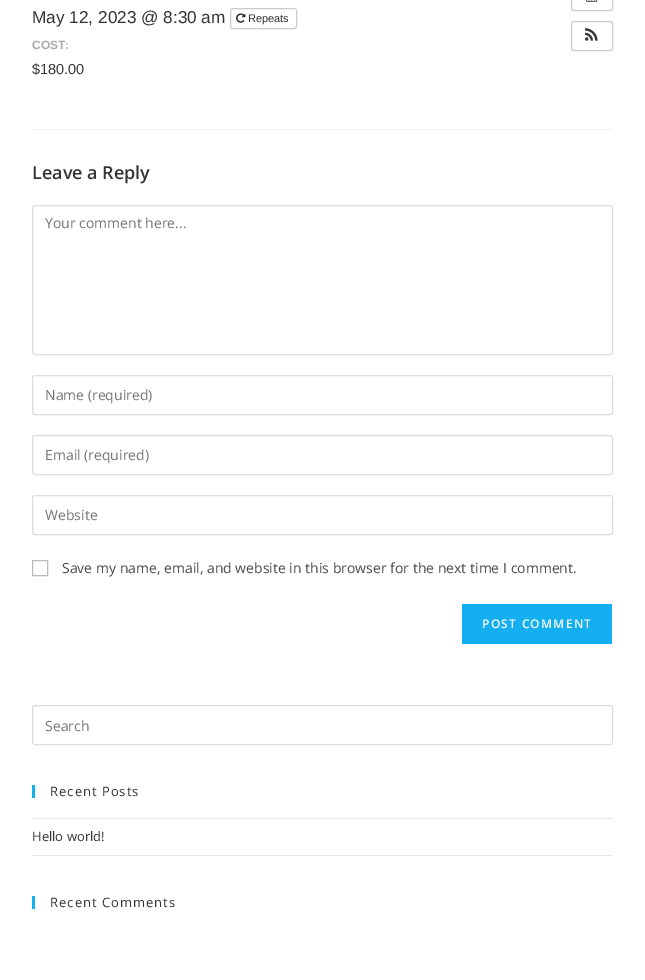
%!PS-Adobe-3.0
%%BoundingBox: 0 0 645 980
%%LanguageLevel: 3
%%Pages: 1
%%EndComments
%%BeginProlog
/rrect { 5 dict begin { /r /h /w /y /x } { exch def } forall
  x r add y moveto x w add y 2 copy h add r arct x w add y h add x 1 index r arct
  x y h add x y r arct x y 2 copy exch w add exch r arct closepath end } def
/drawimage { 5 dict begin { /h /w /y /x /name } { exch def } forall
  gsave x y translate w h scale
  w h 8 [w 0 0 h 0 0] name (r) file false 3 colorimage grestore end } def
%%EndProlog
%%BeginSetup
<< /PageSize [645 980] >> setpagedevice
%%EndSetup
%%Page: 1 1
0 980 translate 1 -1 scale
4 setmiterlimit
1 setgray
0 0 645 980 rectfill
0.8 setgray
230.5 8.5 66 20 2.5 rrect stroke
(images/1.raw) 236 13 10 10 drawimage
571.5 -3.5 41 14 2.5 rrect stroke
(images/2.raw) 586 0 12 2 drawimage
571.5 21.5 41 29 2.5 rrect stroke
(images/3.raw) 585 28 13 13 drawimage
0.945 setgray
32 129 581 1 rectfill
0.867 setgray
32.5 205.5 580 149 2.5 rrect stroke
32.5 375.5 580 39 2.5 rrect stroke
32.5 435.5 580 39 2.5 rrect stroke
32.5 495.5 580 39 2.5 rrect stroke
0.733 setgray
32.5 560.5 15 15 rectstroke
0.075 0.686 0.941 setrgbcolor
462 604 150 40 rectfill
0.867 setgray
32.5 705.5 580 39 2.5 rrect stroke
0.075 0.686 0.941 setrgbcolor
32 785 3 13 rectfill
0.914 setgray
32 818 581 1 rectfill
32 855 581 1 rectfill
0.075 0.686 0.941 setrgbcolor
32 896 3 13 rectfill
/LiberationSans-Regular [17.2 0 0 -17.2 0 0] selectfont
0.2 setgray
32 23 moveto (May 12, 2023 @ 8:30 am) show
/LiberationSans-Regular [11 0 0 -11 0 0] selectfont
248 22 moveto (Repeats) show
/LiberationSans-Bold [12 0 0 -12 0 0] selectfont
0.667 setgray
32 49 moveto (COST:) show
/LiberationSans-Regular [14.5 0 0 -14.5 0 0] selectfont
0.2 setgray
32 74 moveto ($180.00) show
/OpenSans-SemiBold [18 0 0 -18 0 0] selectfont
32 179 moveto (Leave a Reply) show
/OpenSans-Regular [14 0 0 -14 0 0] selectfont
0.459 setgray
45 228 moveto (Your comment here...) show
45 400 moveto (Name \(required\)) show
45 460 moveto (Email \(required\)) show
45 520 moveto (Website) show
0.29 setgray
62 573 moveto (Save my name, email, and website in this browser for the next time I comment.) show
/OpenSans-SemiBold [12 0 0 -12 0 0] selectfont
1 setgray
482 628 moveto 1.25 0 (POST COMMENT) ashow
/OpenSans-Regular [14 0 0 -14 0 0] selectfont
0.459 setgray
45 731 moveto (Search) show
/OpenSans-Regular [13 0 0 -13 0 0] selectfont
0.2 setgray
50 796 moveto 1 0 (Recent Posts) ashow
32 841 moveto (Hello world!) show
50 907 moveto 1 0 (Recent Comments) ashow
showpage
%%EOF
